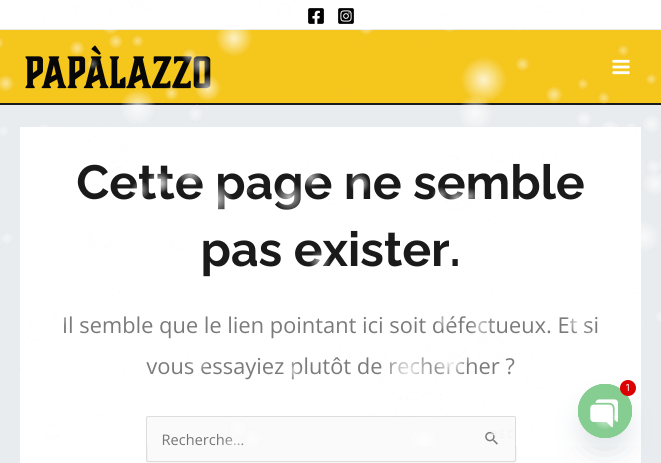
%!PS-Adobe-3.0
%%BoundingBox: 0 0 661 463
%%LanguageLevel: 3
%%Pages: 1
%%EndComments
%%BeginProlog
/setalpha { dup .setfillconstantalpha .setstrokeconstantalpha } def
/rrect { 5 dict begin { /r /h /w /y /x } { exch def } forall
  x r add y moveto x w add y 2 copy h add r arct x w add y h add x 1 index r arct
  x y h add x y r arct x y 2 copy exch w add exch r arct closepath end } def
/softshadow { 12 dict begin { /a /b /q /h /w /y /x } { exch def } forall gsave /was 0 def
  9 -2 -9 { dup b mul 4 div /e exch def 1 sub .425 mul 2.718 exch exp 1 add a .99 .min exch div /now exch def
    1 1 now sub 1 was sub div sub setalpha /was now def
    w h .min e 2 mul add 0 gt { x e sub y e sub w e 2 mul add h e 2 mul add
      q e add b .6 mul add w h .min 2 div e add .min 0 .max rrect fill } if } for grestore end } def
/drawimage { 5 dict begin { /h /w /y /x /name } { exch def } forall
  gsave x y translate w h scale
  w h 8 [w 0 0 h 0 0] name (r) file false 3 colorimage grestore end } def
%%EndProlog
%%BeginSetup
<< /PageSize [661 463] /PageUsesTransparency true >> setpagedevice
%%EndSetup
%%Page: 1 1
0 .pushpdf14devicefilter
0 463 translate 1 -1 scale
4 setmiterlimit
0.914 0.925 0.937 setrgbcolor
0 0 661 463 rectfill
1 setgray
0 0 661 29 rectfill
0.918 setgray
0 29 661 1 rectfill
(images/2.raw) 308 8 16 16 drawimage
(images/3.raw) 338 8 16 16 drawimage
0.961 0.776 0.11 setrgbcolor
0 30 661 73 rectfill
0.102 setgray
0 103 661 2 rectfill
(images/4.raw) 25 45 186 44 drawimage
(images/5.raw) 612 59 18 16 drawimage
1 setgray
20 127 621 336 rectfill
0.98 setgray
146.5 416.5 369 45 1.5 rrect gsave fill grestore
0.867 setgray
stroke
(images/6.raw) 485 431 13 14 drawimage
0.286 0.408 0.494 setrgbcolor
578 400 54 54 27 12 0.16 softshadow
(images/7.raw) 578 384 54 54 drawimage
0.867 0 0 setrgbcolor
newpath 628 388 8 0 360 arc closepath fill
/Raleway-Thin [48 0 0 -48 0 0] selectfont
0.102 setgray
76 199 moveto (Cette page ne semble) show
201 266 moveto (pas exister.) show
/OpenSans-Bold [21.9 0 0 -21.9 0 0] selectfont
0.478 setgray
62 333 moveto (Il semble que le lien pointant ici soit défectueux. Et si) show
146 374 moveto (vous essayiez plutôt de rechercher ?) show
/OpenSans-Regular [14.5 0 0 -14.5 0 0] selectfont
162 445 moveto (Recherche…) show
/Roboto-Regular [10 0 0 -10 0 0] selectfont
1 setgray
625 391 moveto (1) show
(images/1.raw) 0 1 661 445 drawimage
.poppdf14devicefilter showpage
%%EOF
